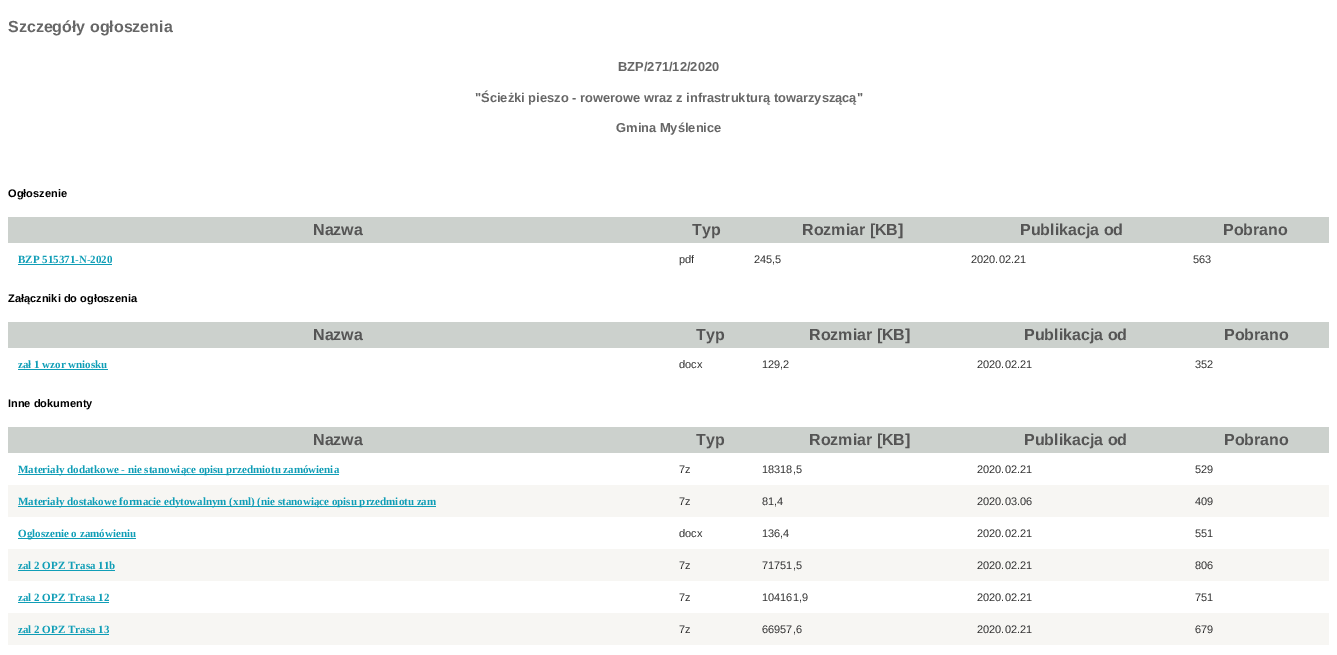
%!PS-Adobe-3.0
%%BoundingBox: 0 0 1337 655
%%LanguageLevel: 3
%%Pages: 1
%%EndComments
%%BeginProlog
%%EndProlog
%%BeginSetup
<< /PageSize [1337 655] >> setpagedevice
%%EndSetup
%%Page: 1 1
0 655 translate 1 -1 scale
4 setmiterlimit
1 setgray
0 0 1337 655 rectfill
0.8 0.82 0.804 setrgbcolor
8 217 1321 26 rectfill
0.063 0.62 0.718 setrgbcolor
18 264 94 1 rectfill
0.8 0.82 0.804 setrgbcolor
8 322 1321 26 rectfill
0.063 0.62 0.718 setrgbcolor
18 369 90 1 rectfill
0.8 0.82 0.804 setrgbcolor
8 427 1321 26 rectfill
0.063 0.62 0.718 setrgbcolor
18 474 321 1 rectfill
0.969 0.965 0.953 setrgbcolor
8 485 1321 32 rectfill
0.063 0.62 0.718 setrgbcolor
18 506 418 1 rectfill
18 538 118 1 rectfill
0.969 0.965 0.953 setrgbcolor
8 549 1321 32 rectfill
0.063 0.62 0.718 setrgbcolor
18 570 97 1 rectfill
18 602 91 1 rectfill
0.969 0.965 0.953 setrgbcolor
8 613 1321 32 rectfill
0.063 0.62 0.718 setrgbcolor
18 634 91 1 rectfill
/LiberationSans-Bold [16 0 0 -16 0 0] selectfont
0.4 setgray
8 32 moveto (Szczegóły ogłoszenia) show
/LiberationSans-Bold [12.9 0 0 -12.9 0 0] selectfont
618 71 moveto (BZP/271/12/2020) show
475 102 moveto ("Ścieżki pieszo - rowerowe wraz z infrastrukturą towarzyszącą") show
616 132 moveto (Gmina Myślenice) show
/LiberationSans-Bold [11 0 0 -11 0 0] selectfont
0 setgray
8 197 moveto (Ogłoszenie) show
/LiberationSans-Bold [16 0 0 -16 0 0] selectfont
0.333 setgray
313 235 moveto (Nazwa) show
692 235 moveto (Typ) show
802 235 moveto (Rozmiar [KB]) show
1020 235 moveto (Publikacja od) show
1223 235 moveto (Pobrano) show
/LiberationSerif-Bold [11 0 0 -11 0 0] selectfont
0.063 0.62 0.718 setrgbcolor
18 263 moveto (BZP 515371-N-2020) show
/LiberationSans-Regular [11 0 0 -11 0 0] selectfont
0.2 setgray
679 263 moveto (pdf) show
754 263 moveto (245,5) show
971 263 moveto (2020.02.21) show
1193 263 moveto (563) show
/LiberationSans-Bold [11 0 0 -11 0 0] selectfont
0 setgray
8 302 moveto (Załączniki do ogłoszenia) show
/LiberationSans-Bold [16 0 0 -16 0 0] selectfont
0.333 setgray
313 340 moveto (Nazwa) show
696 340 moveto (Typ) show
809 340 moveto (Rozmiar [KB]) show
1024 340 moveto (Publikacja od) show
1224 340 moveto (Pobrano) show
/LiberationSerif-Bold [11 0 0 -11 0 0] selectfont
0.063 0.62 0.718 setrgbcolor
18 368 moveto (zał 1 wzor wniosku) show
/LiberationSans-Regular [11 0 0 -11 0 0] selectfont
0.2 setgray
679 368 moveto (docx) show
762 368 moveto (129,2) show
977 368 moveto (2020.02.21) show
1195 368 moveto (352) show
/LiberationSans-Bold [11 0 0 -11 0 0] selectfont
0 setgray
8 407 moveto (Inne dokumenty) show
/LiberationSans-Bold [16 0 0 -16 0 0] selectfont
0.333 setgray
313 445 moveto (Nazwa) show
696 445 moveto (Typ) show
809 445 moveto (Rozmiar [KB]) show
1024 445 moveto (Publikacja od) show
1224 445 moveto (Pobrano) show
/LiberationSerif-Bold [11 0 0 -11 0 0] selectfont
0.063 0.62 0.718 setrgbcolor
18 473 moveto (Materiały dodatkowe - nie stanowiące opisu przedmiotu zamówienia) show
/LiberationSans-Regular [11 0 0 -11 0 0] selectfont
0.2 setgray
679 473 moveto (7z) show
762 473 moveto (18318,5) show
977 473 moveto (2020.02.21) show
1195 473 moveto (529) show
/LiberationSerif-Bold [11 0 0 -11 0 0] selectfont
0.063 0.62 0.718 setrgbcolor
18 505 moveto (Materiały dostakowe formacie edytowalnym \(xml\) \(nie stanowiące opisu przedmiotu zam) show
/LiberationSans-Regular [11 0 0 -11 0 0] selectfont
0.2 setgray
679 505 moveto (7z) show
762 505 moveto (81,4) show
977 505 moveto (2020.03.06) show
1195 505 moveto (409) show
/LiberationSerif-Bold [11 0 0 -11 0 0] selectfont
0.063 0.62 0.718 setrgbcolor
18 537 moveto (Ogloszenie o zamówieniu) show
/LiberationSans-Regular [11 0 0 -11 0 0] selectfont
0.2 setgray
679 537 moveto (docx) show
762 537 moveto (136,4) show
977 537 moveto (2020.02.21) show
1195 537 moveto (551) show
/LiberationSerif-Bold [11 0 0 -11 0 0] selectfont
0.063 0.62 0.718 setrgbcolor
18 569 moveto (zal 2 OPZ Trasa 11b) show
/LiberationSans-Regular [11 0 0 -11 0 0] selectfont
0.2 setgray
679 569 moveto (7z) show
762 569 moveto (71751,5) show
977 569 moveto (2020.02.21) show
1195 569 moveto (806) show
/LiberationSerif-Bold [11 0 0 -11 0 0] selectfont
0.063 0.62 0.718 setrgbcolor
18 601 moveto (zal 2 OPZ Trasa 12) show
/LiberationSans-Regular [11 0 0 -11 0 0] selectfont
0.2 setgray
679 601 moveto (7z) show
762 601 moveto (104161,9) show
977 601 moveto (2020.02.21) show
1195 601 moveto (751) show
/LiberationSerif-Bold [11 0 0 -11 0 0] selectfont
0.063 0.62 0.718 setrgbcolor
18 633 moveto (zal 2 OPZ Trasa 13) show
/LiberationSans-Regular [11 0 0 -11 0 0] selectfont
0.2 setgray
679 633 moveto (7z) show
762 633 moveto (66957,6) show
977 633 moveto (2020.02.21) show
1195 633 moveto (679) show
showpage
%%EOF
